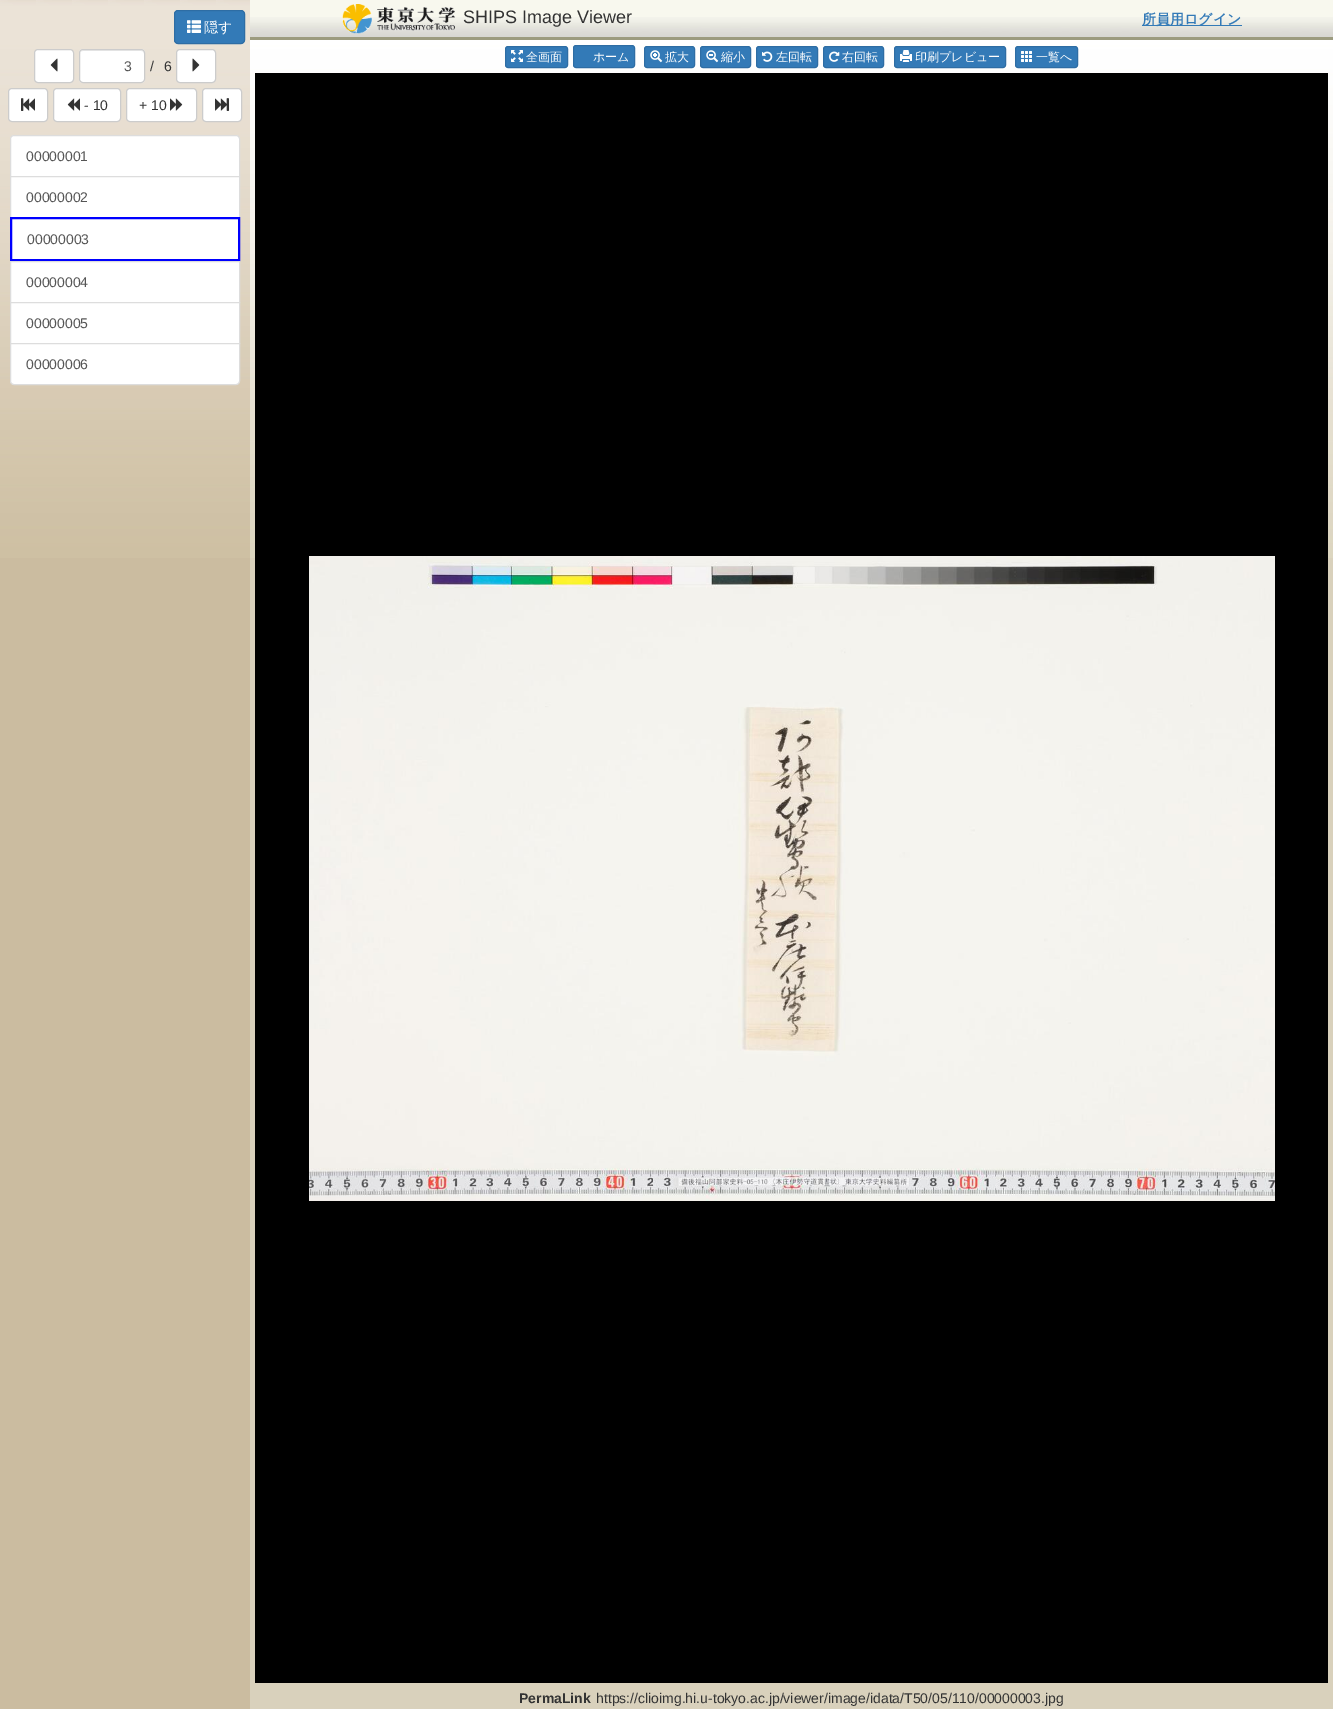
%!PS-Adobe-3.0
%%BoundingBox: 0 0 1333 1709
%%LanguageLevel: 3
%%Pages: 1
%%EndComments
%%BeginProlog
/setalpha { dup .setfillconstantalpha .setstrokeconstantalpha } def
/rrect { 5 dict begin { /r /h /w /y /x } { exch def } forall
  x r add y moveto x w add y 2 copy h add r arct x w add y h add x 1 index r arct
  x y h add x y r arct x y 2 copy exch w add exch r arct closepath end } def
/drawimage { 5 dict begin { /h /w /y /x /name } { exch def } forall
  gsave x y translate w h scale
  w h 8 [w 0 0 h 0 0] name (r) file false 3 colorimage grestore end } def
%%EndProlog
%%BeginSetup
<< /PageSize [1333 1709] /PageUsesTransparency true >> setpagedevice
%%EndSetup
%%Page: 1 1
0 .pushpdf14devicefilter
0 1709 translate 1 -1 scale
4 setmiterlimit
0.851 0.82 0.737 setrgbcolor
0 0 1333 1709 rectfill
(images/1.raw) 0 0 1333 558 drawimage
0.17 setalpha
0.533 0.337 0.075 setrgbcolor
0 0 250 1709 rectfill
1 setalpha
0.2 0.478 0.718 setrgbcolor
174.5 10.5 70 33 3.5 rrect gsave fill grestore
0.18 0.427 0.643 setrgbcolor
stroke
(images/2.raw) 187 20 14 13 drawimage
1 setgray
34.5 49.5 39 33 3.5 rrect gsave fill grestore
0.8 setgray
stroke
(images/3.raw) 50 58 8 14 drawimage
1 setgray
79 49 66 34 4 rrect fill
0.925 setgray
newpath 83 51 moveto 141 51 lineto 143 51 144 52 144 54 curveto 144 48 136 50 131 50 curveto 93 50 lineto 88 50 80 48 80 54 curveto 80 52 81 51 83 51 curveto closepath fill
0.8 setgray
79.5 49.5 65 33 3.5 rrect stroke
1 setgray
176.5 49.5 39 33 3.5 rrect gsave fill grestore
0.8 setgray
stroke
(images/4.raw) 192 58 8 14 drawimage
1 setgray
8.5 88.5 39 33 3.5 rrect gsave fill grestore
0.8 setgray
stroke
(images/5.raw) 21 98 14 13 drawimage
1 setgray
53.5 88.5 67 33 3.5 rrect gsave fill grestore
0.8 setgray
stroke
(images/6.raw) 67 98 13 13 drawimage
1 setgray
126.5 88.5 70 33 3.5 rrect gsave fill grestore
0.8 setgray
stroke
(images/7.raw) 170 98 13 13 drawimage
1 setgray
202.5 88.5 39 33 3.5 rrect gsave fill grestore
0.8 setgray
stroke
(images/8.raw) 215 98 15 13 drawimage
1 setgray
newpath 14 135.5 moveto 236 135.5 lineto 238 135.5 239.5 137 239.5 139 curveto 239.5 176.5 lineto 10.5 176.5 lineto 10.5 139 lineto 10.5 137 12 135.5 14 135.5 curveto closepath gsave fill grestore
0.867 setgray
stroke
1 setgray
newpath 10.5 176.5 moveto 239.5 176.5 lineto 239.5 217.5 lineto 10.5 217.5 lineto closepath gsave fill grestore
0.867 setgray
stroke
1 setgray
newpath 11 218 moveto 239 218 lineto 239 260 lineto 11 260 lineto closepath gsave fill grestore
0 0 1 setrgbcolor
2 setlinewidth
stroke
1 setgray
newpath 10.5 261.5 moveto 239.5 261.5 lineto 239.5 302.5 lineto 10.5 302.5 lineto closepath gsave fill grestore
0.867 setgray
1 setlinewidth
stroke
1 setgray
newpath 10.5 302.5 moveto 239.5 302.5 lineto 239.5 343.5 lineto 10.5 343.5 lineto closepath gsave fill grestore
0.867 setgray
stroke
1 setgray
newpath 10.5 343.5 moveto 239.5 343.5 lineto 239.5 381 lineto 239.5 383 238 384.5 236 384.5 curveto 14 384.5 lineto 12 384.5 10.5 383 10.5 381 curveto closepath gsave fill grestore
0.867 setgray
stroke
0.973 0.973 0.933 setrgbcolor
250 0 1083 17 rectfill
(images/9.raw) 250 17 1083 20 drawimage
(images/10.raw) 342 4 113 30 drawimage
0.2 0.478 0.718 setrgbcolor
1142 25 100 1 rectfill
0.612 0.608 0.498 setrgbcolor
250 37 1083 3 rectfill
0.2 0.478 0.718 setrgbcolor
505.5 46.5 62 21 2.5 rrect gsave fill grestore
0.18 0.427 0.643 setrgbcolor
stroke
(images/11.raw) 511 50 12 12 drawimage
0.2 0.478 0.718 setrgbcolor
573.5 45.5 61 22 2.5 rrect gsave fill grestore
0.18 0.427 0.643 setrgbcolor
stroke
0.2 0.478 0.718 setrgbcolor
644.5 46.5 50 21 2.5 rrect gsave fill grestore
0.18 0.427 0.643 setrgbcolor
stroke
(images/12.raw) 650 50 13 13 drawimage
0.2 0.478 0.718 setrgbcolor
700.5 46.5 50 21 2.5 rrect gsave fill grestore
0.18 0.427 0.643 setrgbcolor
stroke
(images/13.raw) 706 50 13 13 drawimage
0.2 0.478 0.718 setrgbcolor
756.5 46.5 61 21 2.5 rrect gsave fill grestore
0.18 0.427 0.643 setrgbcolor
stroke
(images/14.raw) 762 51 11 11 drawimage
0.2 0.478 0.718 setrgbcolor
823.5 46.5 60 21 2.5 rrect gsave fill grestore
0.18 0.427 0.643 setrgbcolor
stroke
(images/15.raw) 829 51 11 11 drawimage
0.2 0.478 0.718 setrgbcolor
894.5 46.5 111 21 2.5 rrect gsave fill grestore
0.18 0.427 0.643 setrgbcolor
stroke
(images/16.raw) 900 50 12 12 drawimage
0.2 0.478 0.718 setrgbcolor
1015.5 46.5 62 21 2.5 rrect gsave fill grestore
0.18 0.427 0.643 setrgbcolor
stroke
(images/17.raw) 1021 51 11 11 drawimage
0 setgray
255 73 1073 1610 rectfill
(images/18.raw) 309 556 966 645 drawimage
/WenQuanYiZenHei-Medium [14 0 0 -14 0 0] selectfont
1 setgray
204 32 moveto (隠す) show
/LiberationSans-Regular [14 0 0 -14 0 0] selectfont
0.333 setgray
124 71 moveto (3) show
0.2 setgray
150 71 moveto (/) show
164 71 moveto (6) show
84 110 moveto (- 10) show
139 110 moveto (+ 10) show
0.333 setgray
26 161 moveto (00000001) show
26 202 moveto (00000002) show
27 244 moveto (00000003) show
26 287 moveto (00000004) show
26 328 moveto (00000005) show
26 369 moveto (00000006) show
/LiberationSans-Regular [18 0 0 -18 0 0] selectfont
0.2 setgray
463 23 moveto (SHIPS Image Viewer) show
/WenQuanYiZenHei-Bold [14 0 0 -14 0 0] selectfont
0.2 0.478 0.718 setrgbcolor
1142 24 moveto (所員用ログイン) show
/WenQuanYiZenHei-Medium [12 0 0 -12 0 0] selectfont
1 setgray
526 61 moveto (全画面) show
593 61 moveto (ホーム) show
665 61 moveto (拡大) show
721 61 moveto (縮小) show
776 61 moveto (左回転) show
842 61 moveto (右回転) show
915 61 moveto (印刷プレビュー) show
1036 61 moveto (一覧へ) show
/LiberationSans-Bold [14 0 0 -14 0 0] selectfont
0.2 setgray
519 1703 moveto (PermaLink) show
/LiberationSans-Regular [14 0 0 -14 0 0] selectfont
596 1703 moveto (https://clioimg.hi.u-tokyo.ac.jp/viewer/image/idata/T50/05/110/00000003.jpg) show
.poppdf14devicefilter showpage
%%EOF
